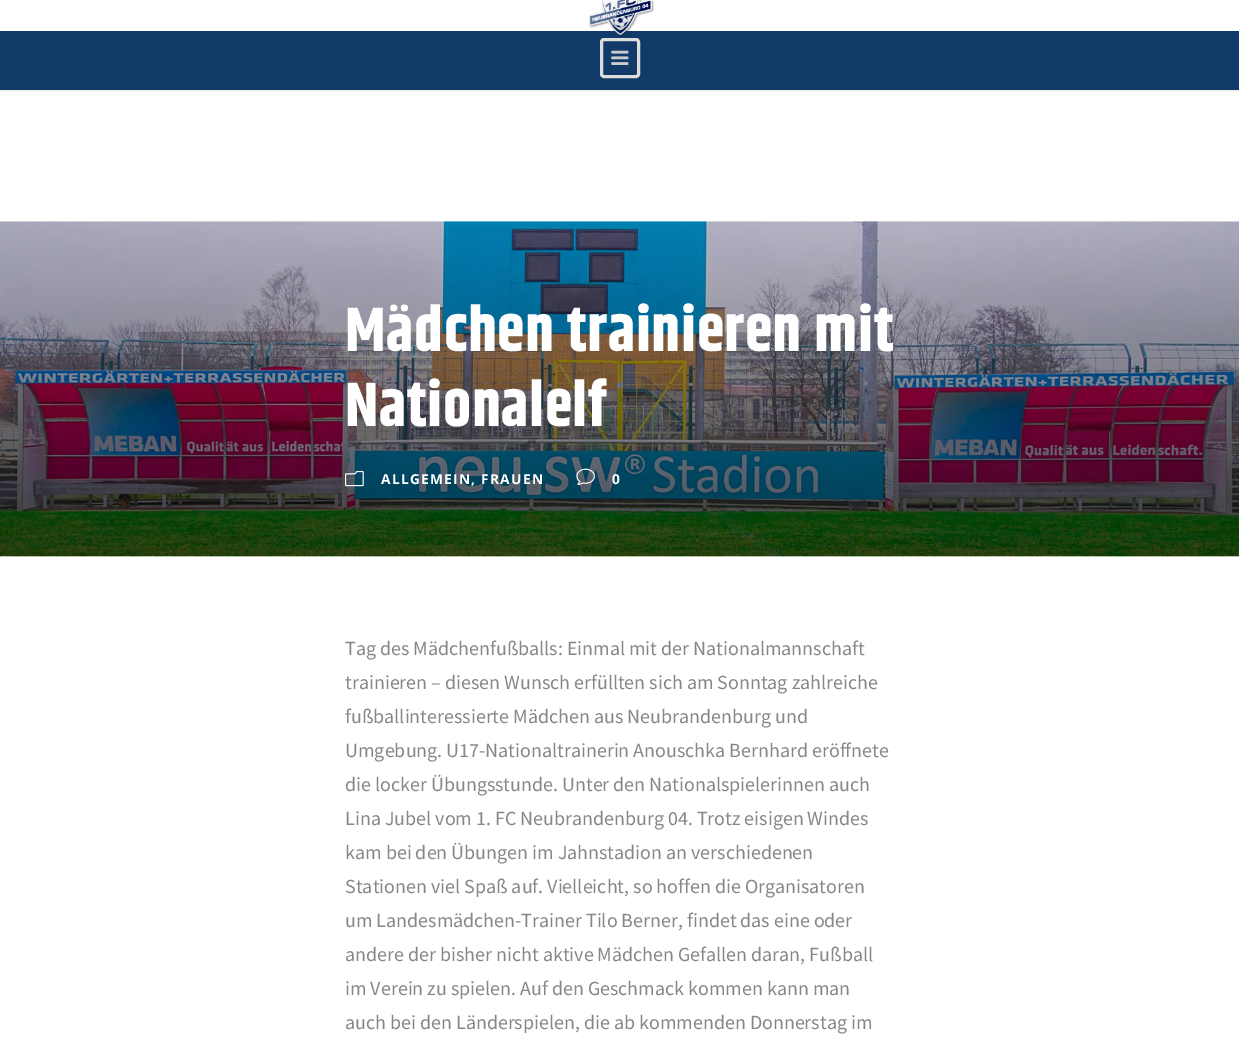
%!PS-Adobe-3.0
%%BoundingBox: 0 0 1239 1039
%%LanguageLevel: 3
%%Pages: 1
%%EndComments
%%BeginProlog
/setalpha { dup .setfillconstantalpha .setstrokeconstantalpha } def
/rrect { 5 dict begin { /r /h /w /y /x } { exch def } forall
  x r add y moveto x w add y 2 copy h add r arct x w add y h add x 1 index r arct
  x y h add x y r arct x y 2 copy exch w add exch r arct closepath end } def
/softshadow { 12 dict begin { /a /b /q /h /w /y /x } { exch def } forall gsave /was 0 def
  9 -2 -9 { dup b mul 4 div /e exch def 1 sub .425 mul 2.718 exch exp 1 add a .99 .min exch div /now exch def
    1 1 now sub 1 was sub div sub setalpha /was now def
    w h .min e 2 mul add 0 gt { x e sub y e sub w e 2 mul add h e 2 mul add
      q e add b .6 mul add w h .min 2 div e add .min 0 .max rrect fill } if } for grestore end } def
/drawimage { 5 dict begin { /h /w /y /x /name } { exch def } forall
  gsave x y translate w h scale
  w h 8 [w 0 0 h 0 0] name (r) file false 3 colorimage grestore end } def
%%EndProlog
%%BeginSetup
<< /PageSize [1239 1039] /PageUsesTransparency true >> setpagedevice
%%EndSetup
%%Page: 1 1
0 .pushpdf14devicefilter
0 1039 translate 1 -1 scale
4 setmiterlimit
1 setgray
0 0 1239 1039 rectfill
0 setgray
0 1 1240 90 0 1 0.1 softshadow
0.067 0.227 0.408 setrgbcolor
0 31 1239 59 rectfill
1 setgray
0 0 1239 31 rectfill
(images/1.raw) 589 0 65 37 drawimage
0.867 setgray
3 setlinewidth
601.5 39.5 37 37 2.5 rrect stroke
(images/2.raw) 611 50 18 15 drawimage
(images/3.raw) 0 221 1239 336 drawimage
(images/4.raw) 0 221 1239 336 drawimage
(images/5.raw) 345 470 19 17 drawimage
(images/6.raw) 576 468 19 17 drawimage
/Khand-Bold [62.5 0 0 -62.5 0 0] selectfont
1 setgray
345 351 moveto 0.6 0 (Mädchen trainieren mit) ashow
345 426 moveto 0.6 0 (Nationalelf) ashow
/OpenSans-Bold [13.75 0 0 -13.75 0 0] selectfont
381 484 moveto 1.25 0 (ALLGEMEIN, FRAUEN) ashow
612 484 moveto 1.25 0 (0) ashow
/SourceSansPro-Regular [20 0 0 -20 0 0] selectfont
0.529 setgray
345 655 moveto (Tag des Mädchenfußballs: Einmal mit der Nationalmannschaft) show
345 689 moveto (trainieren – diesen Wunsch erfüllten sich am Sonntag zahlreiche) show
345 723 moveto (fußballinteressierte Mädchen aus Neubrandenburg und) show
345 757 moveto (Umgebung. U17-Nationaltrainerin Anouschka Bernhard eröffnete) show
345 791 moveto (die locker Übungsstunde. Unter den Nationalspielerinnen auch) show
345 825 moveto (Lina Jubel vom 1. FC Neubrandenburg 04. Trotz eisigen Windes) show
345 859 moveto (kam bei den Übungen im Jahnstadion an verschiedenen) show
345 893 moveto (Stationen viel Spaß auf. Vielleicht, so hoffen die Organisatoren) show
345 927 moveto (um Landesmädchen-Trainer Tilo Berner, findet das eine oder) show
345 961 moveto (andere der bisher nicht aktive Mädchen Gefallen daran, Fußball) show
345 995 moveto (im Verein zu spielen. Auf den Geschmack kommen kann man) show
345 1029 moveto (auch bei den Länderspielen, die ab kommenden Donnerstag im) show
.poppdf14devicefilter showpage
%%EOF
